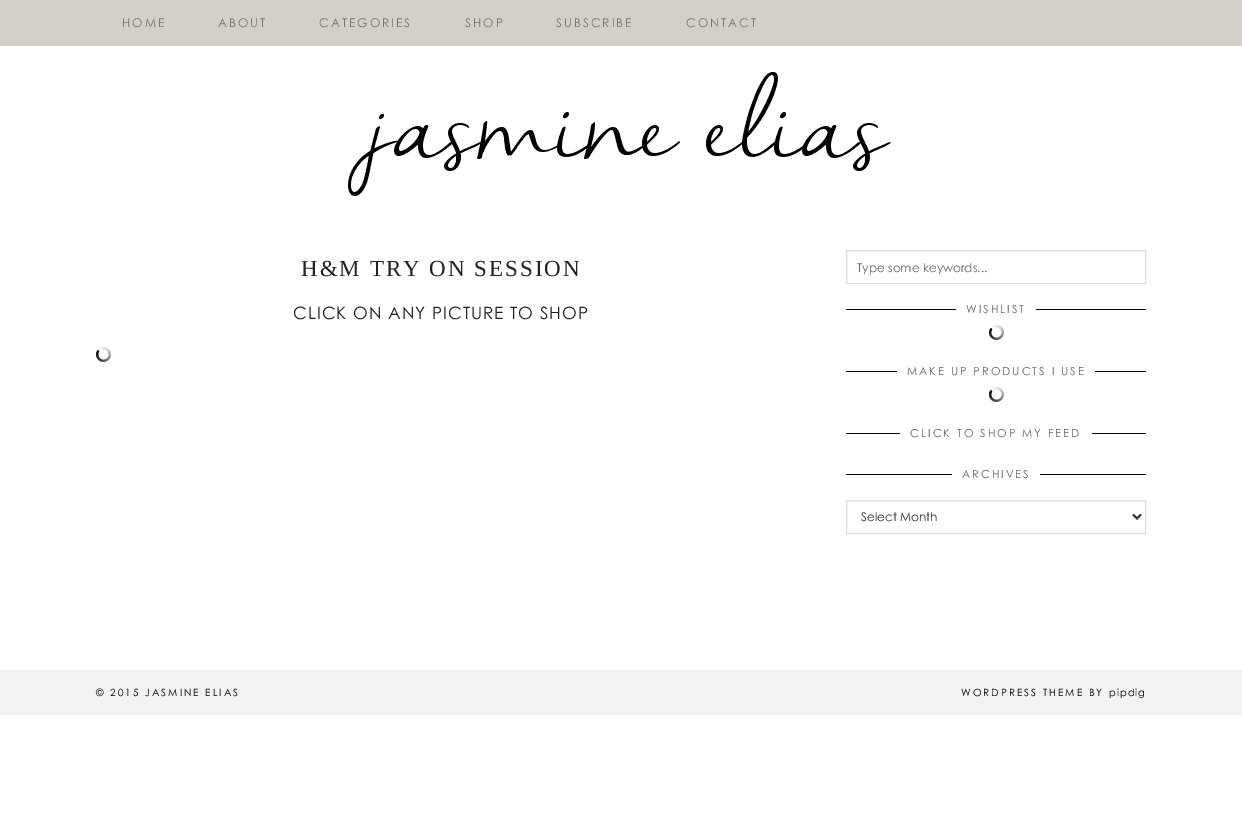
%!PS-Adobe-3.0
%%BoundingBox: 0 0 1242 827
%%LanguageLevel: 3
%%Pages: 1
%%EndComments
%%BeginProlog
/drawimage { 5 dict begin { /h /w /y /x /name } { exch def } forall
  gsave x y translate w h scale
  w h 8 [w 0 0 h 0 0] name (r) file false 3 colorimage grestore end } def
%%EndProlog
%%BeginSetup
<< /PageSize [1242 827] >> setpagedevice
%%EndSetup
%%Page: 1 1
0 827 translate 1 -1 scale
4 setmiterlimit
1 setgray
0 0 1242 827 rectfill
0.835 0.816 0.78 setrgbcolor
0 0 1242 46 rectfill
(images/1.raw) 348 72 543 124 drawimage
(images/2.raw) 96 347 15 15 drawimage
0.867 setgray
846.5 250.5 299 33 rectstroke
0 setgray
846 309 300 1 rectfill
1 setgray
956 309 80 1 rectfill
(images/2.raw) 989 325 15 15 drawimage
0 setgray
846 371 300 1 rectfill
1 setgray
897 371 198 1 rectfill
(images/2.raw) 989 387 15 15 drawimage
0 setgray
846 433 300 1 rectfill
1 setgray
900 433 192 1 rectfill
0 setgray
846 474 300 1 rectfill
1 setgray
952 474 88 1 rectfill
0.867 setgray
846.5 500.5 299 33 rectstroke
0.2 setgray
2 setlinewidth
newpath 1133 514.5 moveto 1137 518.5 lineto 1141 514.5 lineto stroke
0.949 setgray
0 670 1242 45 rectfill
/CenturyGothic-Regular [12 0 0 -12 0 0] selectfont
0.459 setgray
122 27 moveto 2 0 (HOME) ashow
218 27 moveto 2 0 (ABOUT) ashow
319 27 moveto 2 0 (CATEGORIES) ashow
465 27 moveto 2 0 (SHOP) ashow
556 27 moveto 2 0 (SUBSCRIBE) ashow
686 27 moveto 2 0 (CONTACT) ashow
/LiberationSerif-Regular [23 0 0 -23 0 0] selectfont
0.133 setgray
301 276 moveto 2 0 (H&M TRY ON SESSION) ashow
/CenturyGothic-Regular [17 0 0 -17 0 0] selectfont
293 319 moveto 1 0 (CLICK ON ANY PICTURE TO SHOP) ashow
/CenturyGothic-Regular [12 0 0 -12 0 0] selectfont
0.4 setgray
857 272 moveto (Type some keywords...) show
/CenturyGothic-Regular [11 0 0 -11 0 0] selectfont
966 313 moveto 2 0 (WISHLIST) ashow
907 375 moveto 2 0 (MAKE UP PRODUCTS I USE) ashow
910 437 moveto 2 0 (CLICK TO SHOP MY FEED) ashow
962 478 moveto 2 0 (ARCHIVES) ashow
/CenturyGothic-Regular [12 0 0 -12 0 0] selectfont
0.2 setgray
861 521 moveto (Select Month) show
/CenturyGothic-Regular [10 0 0 -10 0 0] selectfont
0 setgray
96 696 moveto 2 0 (© 2015 JASMINE ELIAS) ashow
961 696 moveto 2 0 (WORDPRESS THEME BY) ashow
1109 696 moveto 1 0 (pipdig) ashow
showpage
%%EOF
